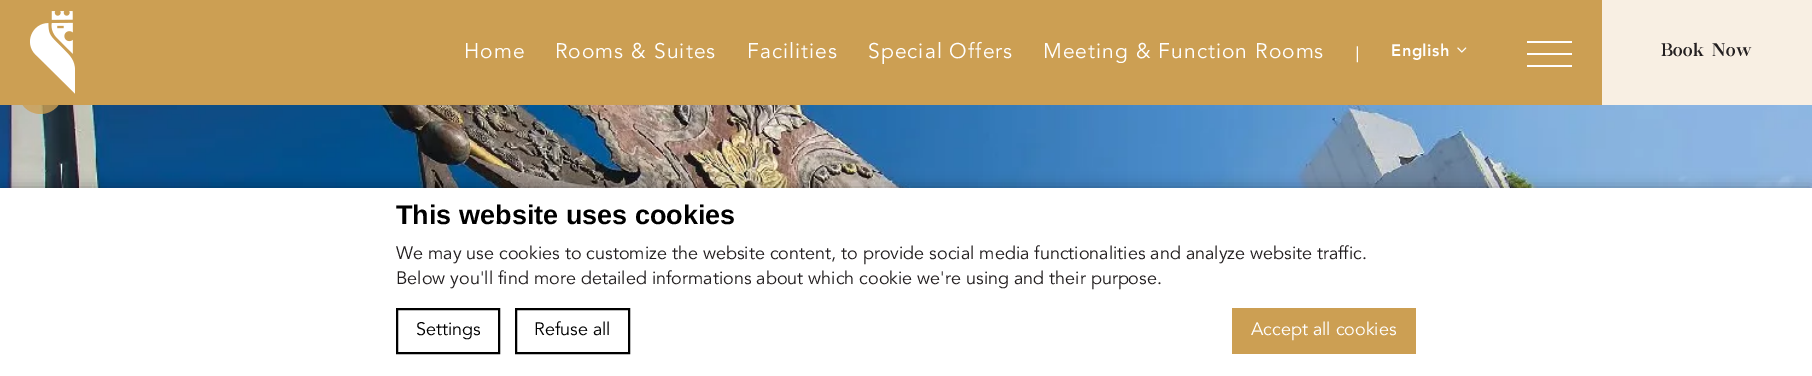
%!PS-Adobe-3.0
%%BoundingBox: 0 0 1812 376
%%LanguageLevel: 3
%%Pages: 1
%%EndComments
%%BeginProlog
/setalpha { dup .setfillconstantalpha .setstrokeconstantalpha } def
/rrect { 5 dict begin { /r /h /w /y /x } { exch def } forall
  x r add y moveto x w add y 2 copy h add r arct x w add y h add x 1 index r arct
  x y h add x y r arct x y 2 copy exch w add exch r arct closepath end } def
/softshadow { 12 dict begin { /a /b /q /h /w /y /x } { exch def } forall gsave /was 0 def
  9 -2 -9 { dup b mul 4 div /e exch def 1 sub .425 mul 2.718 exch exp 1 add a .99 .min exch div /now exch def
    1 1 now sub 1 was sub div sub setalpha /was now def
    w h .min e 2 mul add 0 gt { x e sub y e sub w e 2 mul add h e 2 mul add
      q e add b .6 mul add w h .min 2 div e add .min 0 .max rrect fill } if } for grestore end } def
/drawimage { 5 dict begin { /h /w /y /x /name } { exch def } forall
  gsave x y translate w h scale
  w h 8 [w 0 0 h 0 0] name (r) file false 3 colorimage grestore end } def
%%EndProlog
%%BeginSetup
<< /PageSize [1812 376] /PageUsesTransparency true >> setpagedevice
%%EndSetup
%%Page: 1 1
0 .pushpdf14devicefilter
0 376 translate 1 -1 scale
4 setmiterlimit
1 setgray
0 0 1812 376 rectfill
(images/3.raw) 0 105 1812 83 drawimage
0.8 setalpha
0.8 0.624 0.325 setrgbcolor
newpath 40.5 91.5 22.5 0 360 arc closepath fill
1 setalpha
0 0 1602 105 rectfill
(images/1.raw) 30 11 45 83 drawimage
(images/2.raw) 1457 47 10 6 drawimage
1 setgray
1527 53 45 2 rectfill
1527 41 45 2 rectfill
1527 65 45 2 rectfill
0.973 0.937 0.89 setrgbcolor
1602 0 210 105 rectfill
0 setgray
0 188 1812 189 0 7.5 0.3 softshadow
1 setgray
0 188 1812 188 rectfill
0 setgray
2 setlinewidth
397 309 102 44 rectstroke
516 309 113 44 rectstroke
0.8 0.624 0.325 setrgbcolor
1232 308 184 46 rectfill
/Avenir-Regular [21 0 0 -21 0 0] selectfont
1 setgray
464 58 moveto 1.05 0 (Home) ashow
555 58 moveto 1.05 0 (Rooms & Suites) ashow
747 58 moveto 1.05 0 (Facilities) ashow
868 58 moveto 1.05 0 (Special Offers) ashow
1043 58 moveto 1.05 0 (Meeting & Function Rooms) ashow
/Muli-Regular [18 0 0 -18 0 0] selectfont
1355 59 moveto 0.5 0 (|) ashow
/Avenir-Black [16.5 0 0 -16.5 0 0] selectfont
1391 56 moveto 0.5 0 (English) ashow
/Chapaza-Regular [18 0 0 -18 0 0] selectfont
0.137 0.122 0.125 setrgbcolor
1661 56 moveto 0.5 0 (Book Now) ashow
/LiberationSans-Bold [27 0 0 -27 0 0] selectfont
0 setgray
396 224 moveto (This website uses cookies) show
/Avenir-Regular [18 0 0 -18 0 0] selectfont
0.137 0.122 0.125 setrgbcolor
396 259 moveto (We may use cookies to customize the website content, to provide social media functionalities and analyze website traffic.) show
396 284 moveto (Below you'll find more detailed informations about which cookie we're using and their purpose.) show
0 setgray
416 335 moveto (Settings) show
534 335 moveto (Refuse all) show
1 setgray
1251 335 moveto (Accept all cookies) show
.poppdf14devicefilter showpage
%%EOF
